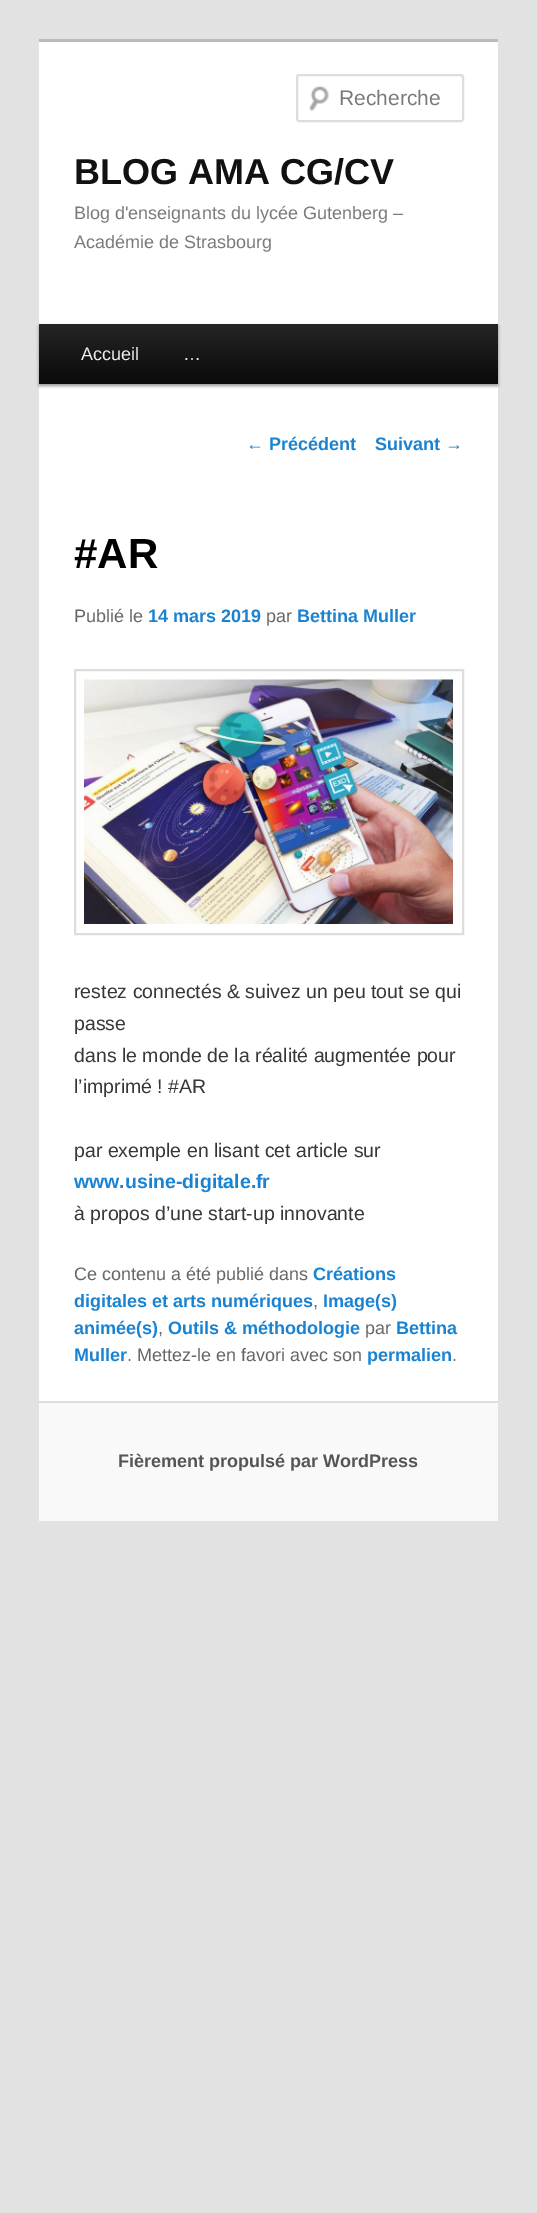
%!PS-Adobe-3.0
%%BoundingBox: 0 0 537 2213
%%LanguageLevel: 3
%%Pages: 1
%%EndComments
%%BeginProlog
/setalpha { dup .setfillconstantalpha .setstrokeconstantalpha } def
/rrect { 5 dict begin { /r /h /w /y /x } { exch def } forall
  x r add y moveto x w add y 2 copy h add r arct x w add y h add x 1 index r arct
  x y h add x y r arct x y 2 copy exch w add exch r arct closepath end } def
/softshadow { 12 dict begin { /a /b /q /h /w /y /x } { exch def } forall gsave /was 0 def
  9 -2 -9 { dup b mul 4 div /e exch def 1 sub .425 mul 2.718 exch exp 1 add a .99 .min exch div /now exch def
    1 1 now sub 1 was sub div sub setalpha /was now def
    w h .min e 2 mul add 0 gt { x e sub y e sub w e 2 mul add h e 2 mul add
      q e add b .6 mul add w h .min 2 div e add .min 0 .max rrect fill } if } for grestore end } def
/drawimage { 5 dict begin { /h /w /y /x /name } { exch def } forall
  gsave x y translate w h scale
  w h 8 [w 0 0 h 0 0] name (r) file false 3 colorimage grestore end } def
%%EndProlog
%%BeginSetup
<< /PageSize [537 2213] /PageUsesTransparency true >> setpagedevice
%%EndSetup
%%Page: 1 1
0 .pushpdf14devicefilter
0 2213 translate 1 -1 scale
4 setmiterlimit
0.886 setgray
0 0 537 2213 rectfill
1 setgray
39 42 459 1359 rectfill
0.733 setgray
39 39 459 3 rectfill
(images/1.raw) 309 85 20 27 drawimage
0.902 setgray
newpath 298 76 moveto 460 76 lineto 461 76 462 77 462 78 curveto 462 76 lineto 462 76 461 75 460 75 curveto 298 75 lineto 298 75 297 76 297 76 curveto 297 78 lineto closepath fill
0.867 setgray
2 setlinewidth
297 75 166 46 2 rrect stroke
0 setgray
39 326 459 60 0 1.5 0.4 softshadow
gsave newpath 39 324 moveto 498 324 lineto 498 384 lineto 39 384 lineto closepath clip newpath
<< /ShadingType 2 /ColorSpace /DeviceRGB /Coords [269 324 269 384] /Extend [true true] /Function << /FunctionType 2 /Domain [0 1] /C0 [0.145 0.145 0.145] /C1 [0.039 0.039 0.039] /N 1 >> >> shfill grestore
0.867 setgray
75 670 388 264 rectstroke
(images/2.raw) 84 679 369 245 drawimage
0.976 setgray
39 1403 459 118 rectfill
0.867 setgray
39 1401 459 2 rectfill
/LiberationSans-Regular [21 0 0 -21 0 0] selectfont
0.478 setgray
339 105 moveto (Recherche) show
/LiberationSans-Bold [36 0 0 -36 0 0] selectfont
0.067 setgray
74 184 moveto (BLOG AMA CG/CV) show
/LiberationSans-Regular [18 0 0 -18 0 0] selectfont
0.478 setgray
74 219 moveto (Blog d'enseignants du lycée Gutenberg –) show
74 248 moveto (Académie de Strasbourg) show
0.933 setgray
81 360 moveto (Accueil) show
183 360 moveto (…) show
0.098 0.51 0.82 setrgbcolor
246 450 moveto (←) show
/LiberationSans-Bold [18 0 0 -18 0 0] selectfont
269 450 moveto (Précédent) show
375 450 moveto (Suivant) show
/LiberationSans-Regular [18 0 0 -18 0 0] selectfont
445 450 moveto (→) show
/LiberationSans-Bold [42 0 0 -42 0 0] selectfont
0 setgray
74 568 moveto (#AR) show
/LiberationSans-Regular [18 0 0 -18 0 0] selectfont
0.4 setgray
74 622 moveto (Publié le) show
/LiberationSans-Bold [18 0 0 -18 0 0] selectfont
0.098 0.51 0.82 setrgbcolor
148 622 moveto (14 mars 2019) show
/LiberationSans-Regular [18 0 0 -18 0 0] selectfont
0.4 setgray
266 622 moveto (par) show
/LiberationSans-Bold [18 0 0 -18 0 0] selectfont
0.098 0.51 0.82 setrgbcolor
297 622 moveto (Bettina Muller) show
/LiberationSans-Regular [19.5 0 0 -19.5 0 0] selectfont
0.216 setgray
74 998 moveto (restez connectés & suivez un peu tout se qui) show
74 1030 moveto (passe) show
74 1062 moveto (dans le monde de la réalité augmentée pour) show
74 1093 moveto (l’imprimé ! #AR) show
74 1157 moveto (par exemple en lisant cet article sur) show
/LiberationSans-Bold [19.5 0 0 -19.5 0 0] selectfont
0.098 0.51 0.82 setrgbcolor
74 1188 moveto (www.usine-digitale.fr) show
/LiberationSans-Regular [19.5 0 0 -19.5 0 0] selectfont
0.216 setgray
74 1220 moveto (à propos d’une start-up innovante) show
/LiberationSans-Regular [18 0 0 -18 0 0] selectfont
0.4 setgray
74 1280 moveto (Ce contenu a été publié dans) show
/LiberationSans-Bold [18 0 0 -18 0 0] selectfont
0.098 0.51 0.82 setrgbcolor
313 1280 moveto (Créations) show
74 1307 moveto (digitales et arts numériques) show
/LiberationSans-Regular [18 0 0 -18 0 0] selectfont
0.4 setgray
313 1307 moveto (,) show
/LiberationSans-Bold [18 0 0 -18 0 0] selectfont
0.098 0.51 0.82 setrgbcolor
323 1307 moveto (Image\(s\)) show
74 1334 moveto (animée\(s\)) show
/LiberationSans-Regular [18 0 0 -18 0 0] selectfont
0.4 setgray
158 1334 moveto (,) show
/LiberationSans-Bold [18 0 0 -18 0 0] selectfont
0.098 0.51 0.82 setrgbcolor
168 1334 moveto (Outils & méthodologie) show
/LiberationSans-Regular [18 0 0 -18 0 0] selectfont
0.4 setgray
365 1334 moveto (par) show
/LiberationSans-Bold [18 0 0 -18 0 0] selectfont
0.098 0.51 0.82 setrgbcolor
396 1334 moveto (Bettina) show
74 1361 moveto (Muller) show
/LiberationSans-Regular [18 0 0 -18 0 0] selectfont
0.4 setgray
127 1361 moveto (. Mettez-le en favori avec son) show
/LiberationSans-Bold [18 0 0 -18 0 0] selectfont
0.098 0.51 0.82 setrgbcolor
367 1361 moveto (permalien) show
/LiberationSans-Regular [18 0 0 -18 0 0] selectfont
0.4 setgray
452 1361 moveto (.) show
/LiberationSans-Bold [18 0 0 -18 0 0] selectfont
0.333 setgray
118 1467 moveto (Fièrement propulsé par WordPress) show
.poppdf14devicefilter showpage
%%EOF
